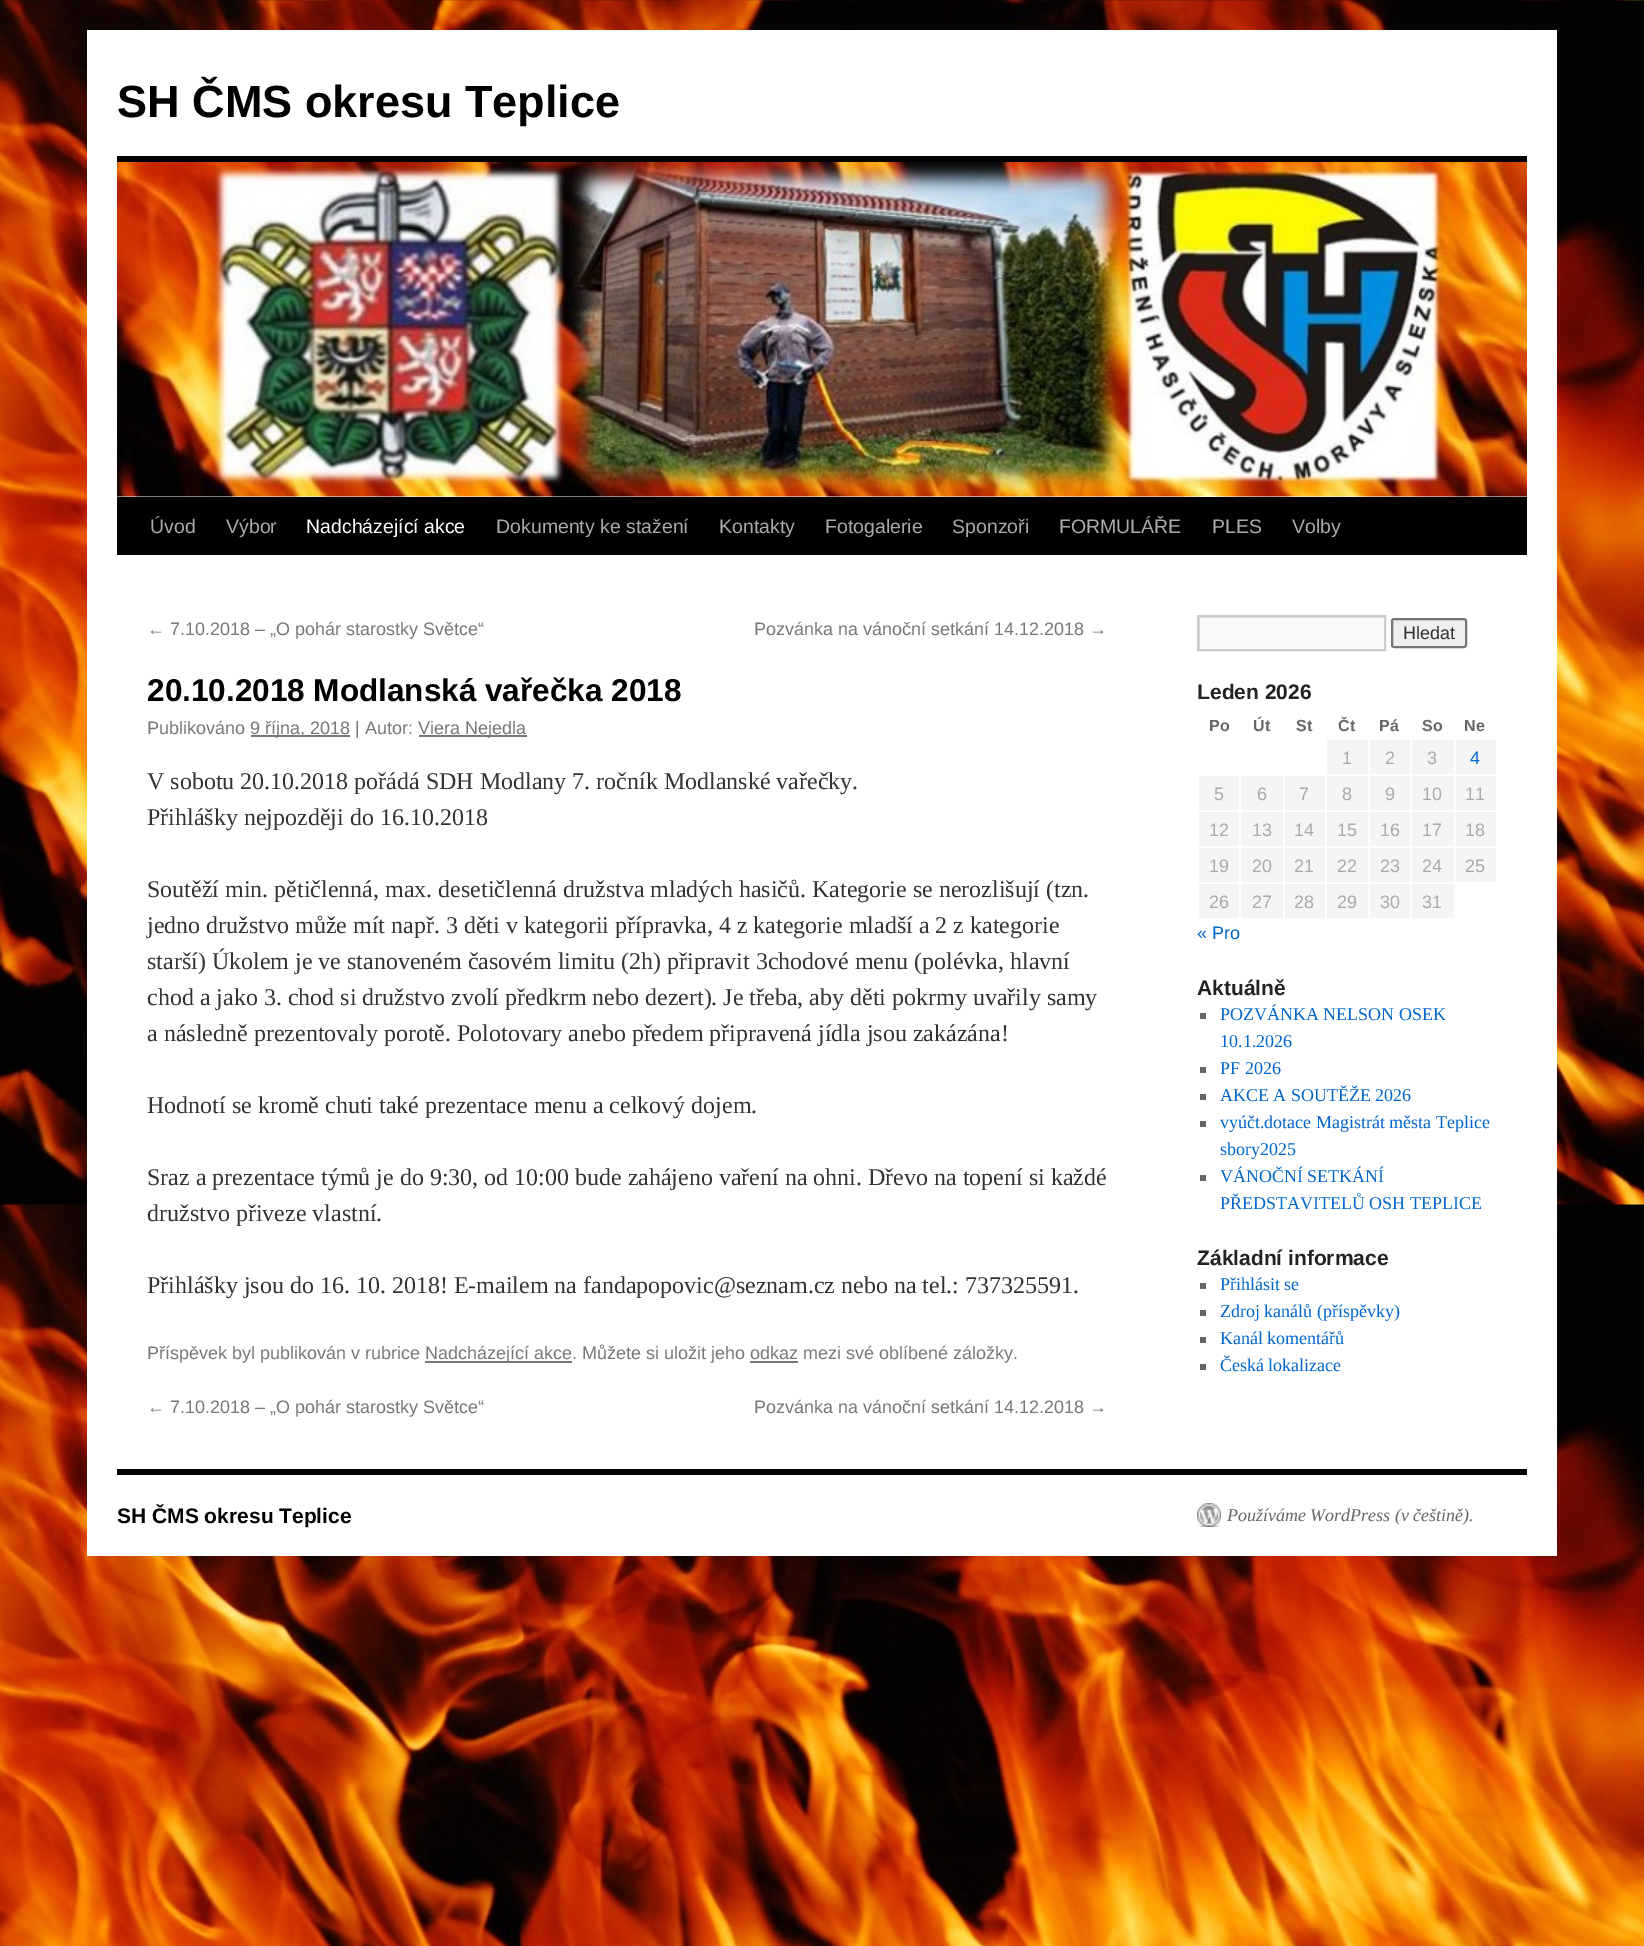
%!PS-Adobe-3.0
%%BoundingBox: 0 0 1644 1946
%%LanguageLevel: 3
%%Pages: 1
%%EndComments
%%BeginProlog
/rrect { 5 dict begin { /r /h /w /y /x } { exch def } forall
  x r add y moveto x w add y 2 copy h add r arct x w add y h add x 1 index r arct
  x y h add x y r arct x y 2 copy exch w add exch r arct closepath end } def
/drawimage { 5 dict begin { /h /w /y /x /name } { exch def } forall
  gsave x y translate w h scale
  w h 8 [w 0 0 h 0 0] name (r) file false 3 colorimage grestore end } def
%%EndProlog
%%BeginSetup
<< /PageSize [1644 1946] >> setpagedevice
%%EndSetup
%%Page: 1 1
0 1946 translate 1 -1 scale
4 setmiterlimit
1 setgray
0 0 1644 1946 rectfill
(images/1.raw) 0 0 1644 1946 drawimage
87 30 1470 1526 rectfill
0 setgray
117 156 1410 6 rectfill
117 497 1410 58 rectfill
(images/2.raw) 117 162 1410 335 drawimage
0.467 setgray
251 735 99 2 rectfill
419 735 108 2 rectfill
425 1361 147 2 rectfill
750 1361 48 2 rectfill
0.976 setgray
1200 618 184 31 rectfill
gsave
1199 617 186 33 rectclip
0.878 setgray
newpath 1050 468 moveto 1533 468 lineto 1533 798 lineto 1050 798 lineto closepath 1200 618 moveto 1386 618 lineto 1386 651 lineto 1200 651 lineto closepath eofill
grestore
0.8 setgray
2 setlinewidth
1198 616 187 34 rectstroke
0.937 setgray
1392 619 74 28 2 rrect gsave fill grestore
0.463 setgray
stroke
0.961 setgray
1327 740 41 34 rectfill
1370 740 40 34 rectfill
1412 740 42 34 rectfill
1456 740 40 34 rectfill
1199 776 40 34 rectfill
1241 776 42 34 rectfill
1285 776 40 34 rectfill
1327 776 41 34 rectfill
1370 776 40 34 rectfill
1412 776 42 34 rectfill
1456 776 40 34 rectfill
1199 812 40 34 rectfill
1241 812 42 34 rectfill
1285 812 40 34 rectfill
1327 812 41 34 rectfill
1370 812 40 34 rectfill
1412 812 42 34 rectfill
1456 812 40 34 rectfill
1199 848 40 34 rectfill
1241 848 42 34 rectfill
1285 848 40 34 rectfill
1327 848 41 34 rectfill
1370 848 40 34 rectfill
1412 848 42 34 rectfill
1456 848 40 34 rectfill
1199 884 40 34 rectfill
1241 884 42 34 rectfill
1285 884 40 34 rectfill
1327 884 41 34 rectfill
1370 884 40 34 rectfill
1412 884 42 34 rectfill
0.4 setgray
1200 1013 6 6 rectfill
1200 1067 6 6 rectfill
1200 1094 6 6 rectfill
1200 1121 6 6 rectfill
1200 1175 6 6 rectfill
1200 1283 6 6 rectfill
1200 1310 6 6 rectfill
1200 1337 6 6 rectfill
1200 1364 6 6 rectfill
0 setgray
117 1469 1410 6 rectfill
(images/3.raw) 1197 1503 24 24 drawimage
/LiberationSans-Bold [45 0 0 -45 0 0] selectfont
117 117 moveto (SH ČMS okresu Teplice) show
/LiberationSans-Regular [19.5 0 0 -19.5 0 0] selectfont
0.667 setgray
150 533 moveto (Úvod) show
226 533 moveto (Výbor) show
1 setgray
306 533 moveto (Nadcházející akce) show
0.667 setgray
496 533 moveto (Dokumenty ke stažení) show
719 533 moveto (Kontakty) show
825 533 moveto (Fotogalerie) show
952 533 moveto (Sponzoři) show
1059 533 moveto (FORMULÁŘE) show
1212 533 moveto (PLES) show
1292 533 moveto (Volby) show
/LiberationSans-Regular [18 0 0 -18 0 0] selectfont
0.467 setgray
147 635 moveto (← 7.10.2018 – „O pohár starostky Světce“) show
754 635 moveto (Pozvánka na vánoční setkání 14.12.2018 →) show
/LiberationSans-Bold [31.5 0 0 -31.5 0 0] selectfont
0 setgray
147 701 moveto (20.10.2018 Modlanská vařečka 2018) show
/LiberationSans-Regular [18 0 0 -18 0 0] selectfont
0.467 setgray
147 734 moveto (Publikováno) show
250 734 moveto (9 října, 2018 | Autor:) show
418 734 moveto (Viera Nejedla) show
/LiberationSerif-Regular [24 0 0 -24 0 0] selectfont
0.2 setgray
147 789 moveto (V sobotu 20.10.2018 pořádá SDH Modlany 7. ročník Modlanské vařečky.) show
147 825 moveto (Přihlášky nejpozději do 16.10.2018) show
147 897 moveto (Soutěží min. pětičlenná, max. desetičlenná družstva mladých hasičů. Kategorie se nerozlišují \(tzn.) show
147 933 moveto (jedno družstvo může mít např. 3 děti v kategorii přípravka, 4 z kategorie mladší a 2 z kategorie) show
147 969 moveto (starší\) Úkolem je ve stanoveném časovém limitu \(2h\) připravit 3chodové menu \(polévka, hlavní) show
147 1005 moveto (chod a jako 3. chod si družstvo zvolí předkrm nebo dezert\). Je třeba, aby děti pokrmy uvařily samy) show
147 1041 moveto (a následně prezentovaly porotě. Polotovary anebo předem připravená jídla jsou zakázána!) show
147 1113 moveto (Hodnotí se kromě chuti také prezentace menu a celkový dojem.) show
147 1185 moveto (Sraz a prezentace týmů je do 9:30, od 10:00 bude zahájeno vaření na ohni. Dřevo na topení si každé) show
147 1221 moveto (družstvo přiveze vlastní.) show
147 1293 moveto (Přihlášky jsou do 16. 10. 2018! E-mailem na fandapopovic@seznam.cz nebo na tel.: 737325591.) show
/LiberationSans-Regular [18 0 0 -18 0 0] selectfont
0.467 setgray
147 1359 moveto (Příspěvek byl publikován v rubrice) show
425 1359 moveto (Nadcházející akce. Můžete si uložit jeho odkaz mezi své oblíbené záložky.) show
147 1413 moveto (← 7.10.2018 – „O pohár starostky Světce“) show
754 1413 moveto (Pozvánka na vánoční setkání 14.12.2018 →) show
0.2 setgray
1403 639 moveto (Hledat) show
/LiberationSans-Bold [21 0 0 -21 0 0] selectfont
0.133 setgray
1197 699 moveto (Leden 2026) show
/LiberationSans-Bold [16 0 0 -16 0 0] selectfont
0.4 setgray
1209 731 moveto (Po) show
1253 731 moveto (Út) show
1296 731 moveto (St) show
1338 731 moveto (Čt) show
1379 731 moveto (Pá) show
1422 731 moveto (So) show
1464 731 moveto (Ne) show
/LiberationSans-Regular [18 0 0 -18 0 0] selectfont
0.667 setgray
1342 764 moveto (1) show
1385 764 moveto (2) show
1427 764 moveto (3) show
0 0.4 0.8 setrgbcolor
1470 764 moveto (4) show
0.667 setgray
1214 800 moveto (5) show
1257 800 moveto (6) show
1299 800 moveto (7) show
1342 800 moveto (8) show
1385 800 moveto (9) show
1422 800 moveto (10) show
1465 800 moveto (11) show
1209 836 moveto (12) show
1252 836 moveto (13) show
1294 836 moveto (14) show
1337 836 moveto (15) show
1380 836 moveto (16) show
1422 836 moveto (17) show
1465 836 moveto (18) show
1209 872 moveto (19) show
1252 872 moveto (20) show
1294 872 moveto (21) show
1337 872 moveto (22) show
1380 872 moveto (23) show
1422 872 moveto (24) show
1465 872 moveto (25) show
1209 908 moveto (26) show
1252 908 moveto (27) show
1294 908 moveto (28) show
1337 908 moveto (29) show
1380 908 moveto (30) show
1422 908 moveto (31) show
0 0.4 0.8 setrgbcolor
1197 939 moveto (« Pro) show
/LiberationSans-Bold [21 0 0 -21 0 0] selectfont
0.133 setgray
1197 995 moveto (Aktuálně) show
/LiberationSerif-Regular [18 0 0 -18 0 0] selectfont
0 0.4 0.8 setrgbcolor
1220 1020 moveto (POZVÁNKA NELSON OSEK) show
1220 1047 moveto (10.1.2026) show
1220 1074 moveto (PF 2026) show
1220 1101 moveto (AKCE A SOUTĚŽE 2026) show
1220 1128 moveto (vyúčt.dotace Magistrát města Teplice) show
1220 1155 moveto (sbory2025) show
1220 1182 moveto (VÁNOČNÍ SETKÁNÍ) show
1220 1209 moveto (PŘEDSTAVITELŮ OSH TEPLICE) show
/LiberationSans-Bold [21 0 0 -21 0 0] selectfont
0.133 setgray
1197 1265 moveto (Základní informace) show
/LiberationSerif-Regular [18 0 0 -18 0 0] selectfont
0 0.4 0.8 setrgbcolor
1220 1290 moveto (Přihlásit se) show
1220 1317 moveto (Zdroj kanálů \(příspěvky\)) show
1220 1344 moveto (Kanál komentářů) show
1220 1371 moveto (Česká lokalizace) show
/LiberationSans-Bold [21 0 0 -21 0 0] selectfont
0 setgray
117 1523 moveto (SH ČMS okresu Teplice) show
/LiberationSerif-Italic [18 0 0 -18 0 0] selectfont
0.4 setgray
1227 1521 moveto (Používáme WordPress \(v češtině\).) show
showpage
%%EOF
